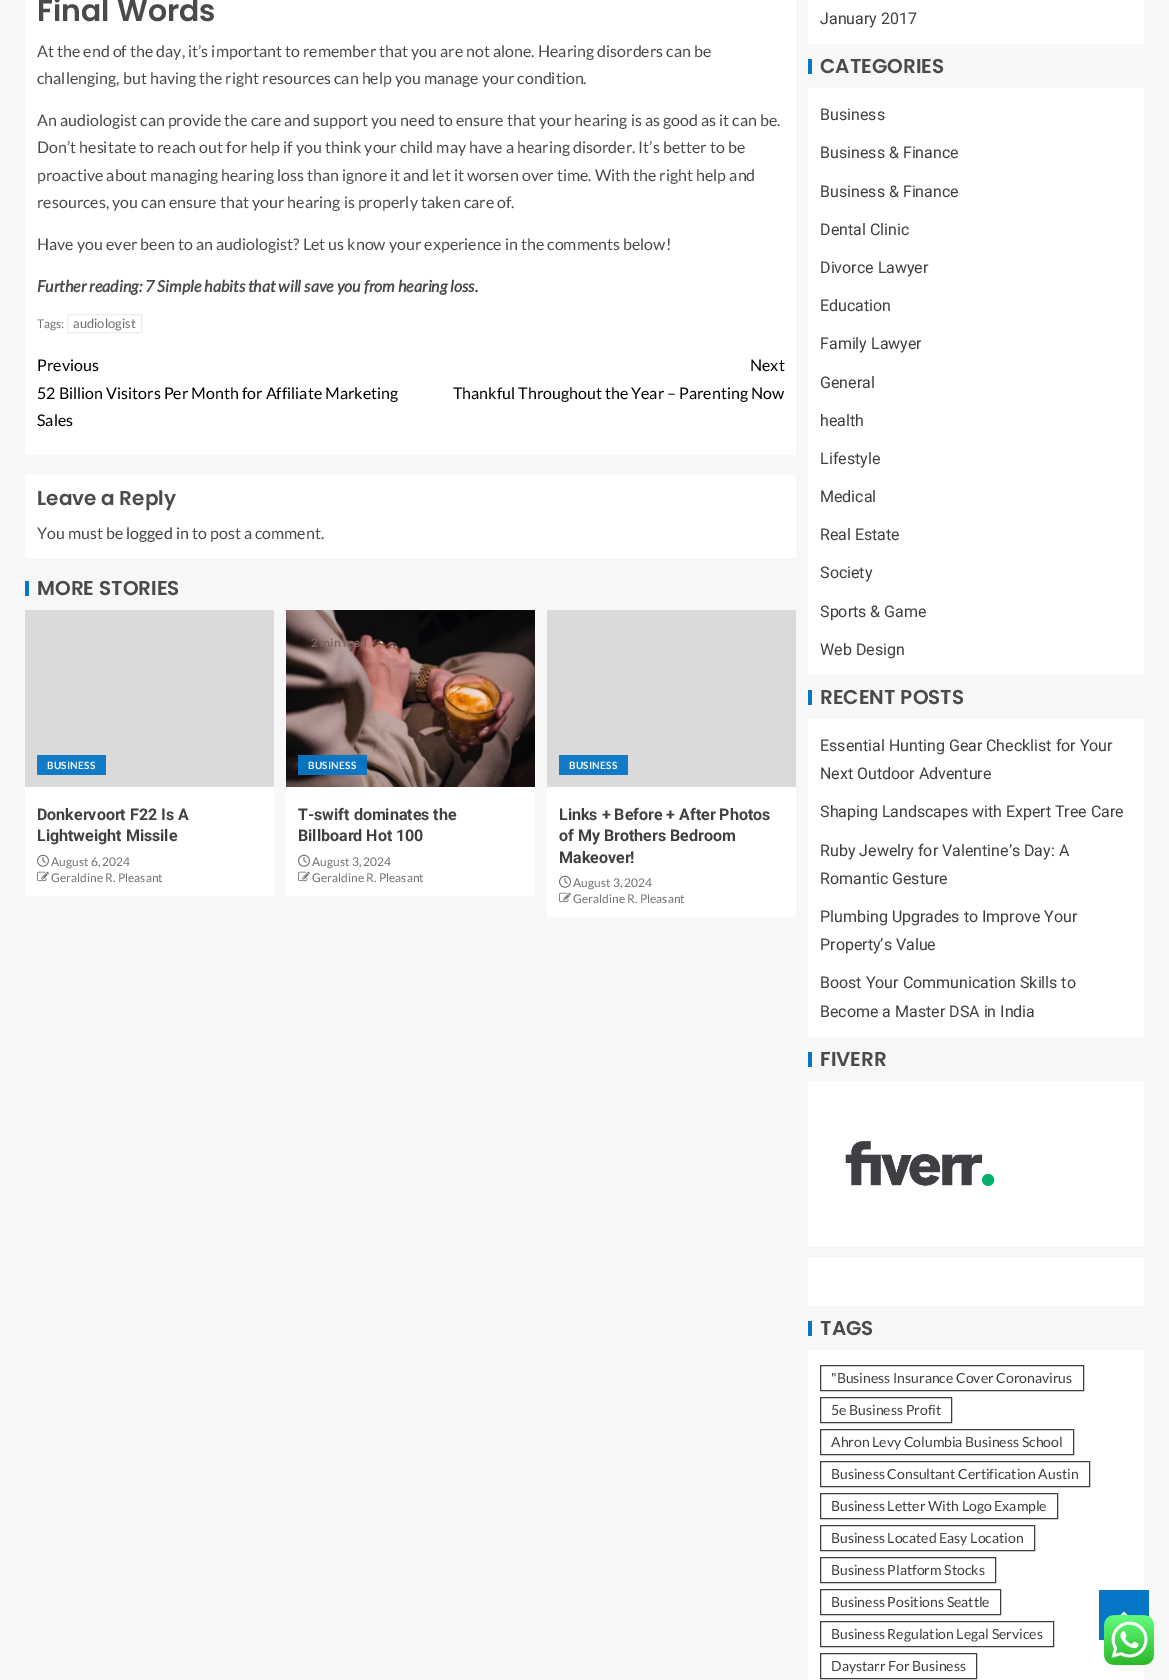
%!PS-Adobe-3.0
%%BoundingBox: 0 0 1169 1680
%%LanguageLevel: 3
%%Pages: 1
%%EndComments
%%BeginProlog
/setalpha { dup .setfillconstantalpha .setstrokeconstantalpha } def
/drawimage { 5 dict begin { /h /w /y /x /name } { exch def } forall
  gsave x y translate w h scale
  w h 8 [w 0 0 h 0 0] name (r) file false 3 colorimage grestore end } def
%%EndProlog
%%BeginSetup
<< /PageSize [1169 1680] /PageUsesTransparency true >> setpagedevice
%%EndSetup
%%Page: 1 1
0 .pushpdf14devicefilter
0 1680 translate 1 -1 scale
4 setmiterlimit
0.969 setgray
0 0 1169 1680 rectfill
1 setgray
25 0 771 455 rectfill
0.925 setgray
67.5 314.5 74 18 rectstroke
1 setgray
25 475 771 83 rectfill
0.027 0.463 0.776 setrgbcolor
25 581 4 15 rectfill
0.855 setgray
25 610 249 177 rectfill
0.071 0.482 0.78 setrgbcolor
37 755 69 20 rectfill
1 setgray
25 787 249 109 rectfill
(images/1.raw) 37 854 12 13 drawimage
(images/2.raw) 37 871 12 11 drawimage
(images/3.raw) 286 610 249 177 drawimage
0.95 setalpha
0.027 0.463 0.776 setrgbcolor
298 755 69 20 rectfill
1 setalpha
1 setgray
286 787 249 109 rectfill
(images/1.raw) 298 854 12 13 drawimage
(images/2.raw) 298 871 12 11 drawimage
0.855 setgray
547 610 249 177 rectfill
0.071 0.482 0.78 setrgbcolor
559 755 69 20 rectfill
1 setgray
547 787 249 130 rectfill
(images/1.raw) 559 875 12 13 drawimage
(images/2.raw) 559 892 12 11 drawimage
808 0 336 44 rectfill
0.027 0.463 0.776 setrgbcolor
808 59 4 15 rectfill
1 setgray
808 88 336 587 rectfill
0.027 0.463 0.776 setrgbcolor
808 690 4 15 rectfill
1 setgray
808 719 336 318 rectfill
0.027 0.463 0.776 setrgbcolor
808 1052 4 15 rectfill
1 setgray
808 1081 336 165 rectfill
(images/4.raw) 845 1141 150 45 drawimage
808 1258 336 48 rectfill
0.027 0.463 0.776 setrgbcolor
808 1321 4 15 rectfill
1 setgray
808 1350 336 330 rectfill
0.251 setgray
820.5 1365.5 263 25 rectstroke
820.5 1397.5 131 25 rectstroke
820.5 1429.5 253 25 rectstroke
820.5 1461.5 269 25 rectstroke
820.5 1493.5 237 25 rectstroke
820.5 1525.5 214 25 rectstroke
820.5 1557.5 175 25 rectstroke
820.5 1589.5 180 25 rectstroke
820.5 1621.5 233 25 rectstroke
820.5 1653.5 156 25 rectstroke
0.027 0.463 0.776 setrgbcolor
1099 1590 50 50 rectfill
(images/5.raw) 1119 1611 10 5 drawimage
(images/6.raw) 1104 1615 50 50 drawimage
/Poppins-SemiBold [30 0 0 -30 0 0] selectfont
0.29 setgray
37 21 moveto (Final Words) show
/Lato-Regular [16 0 0 -16 0 0] selectfont
37 57 moveto (At the end of the day, it’s important to remember that you are not alone. Hearing disorders can be) show
37 84 moveto (challenging, but having the right resources can help you manage your condition.) show
37 126 moveto (An audiologist can provide the care and support you need to ensure that your hearing is as good as it can be.) show
37 153 moveto (Don’t hesitate to reach out for help if you think your child may have a hearing disorder. It’s better to be) show
37 181 moveto (proactive about managing hearing loss than ignore it and let it worsen over time. With the right help and) show
37 208 moveto (resources, you can ensure that your hearing is properly taken care of.) show
37 250 moveto (Have you ever been to an audiologist? Let us know your experience in the comments below!) show
/Lato-BoldItalic [16 0 0 -16 0 0] selectfont
37 292 moveto (Further reading: 7 Simple habits that will save you from hearing loss.) show
/Lato-Regular [12 0 0 -12 0 0] selectfont
0.439 setgray
37 328 moveto (Tags:) show
/Lato-Regular [13 0 0 -13 0 0] selectfont
73 328 moveto (audiologist) show
/Lato-Regular [16 0 0 -16 0 0] selectfont
0 setgray
37 371 moveto (Previous) show
37 399 moveto (52 Billion Visitors Per Month for Affiliate Marketing) show
37 426 moveto (Sales) show
750 371 moveto (Next) show
453 399 moveto (Thankful Throughout the Year – Parenting Now) show
/Poppins-SemiBold [20 0 0 -20 0 0] selectfont
0.29 setgray
37 505 moveto (Leave a Reply) show
/Lato-Regular [16 0 0 -16 0 0] selectfont
37 539 moveto (You must be) show
0.251 setgray
126 539 moveto (logged in) show
0.29 setgray
192 539 moveto (to post a comment.) show
/Poppins-SemiBold [20 0 0 -20 0 0] selectfont
37 595 moveto (MORE STORIES) show
/Lato-Bold [10 0 0 -10 0 0] selectfont
0.992 setgray
47 769 moveto 0.25 0 (BUSINESS) ashow
/Roboto-Bold [16 0 0 -16 0 0] selectfont
0.251 setgray
37 820 moveto (Donkervoort F22 Is A) show
37 841 moveto (Lightweight Missile) show
/Lato-Regular [12 0 0 -12 0 0] selectfont
0.439 setgray
51 866 moveto (August 6, 2024) show
51 882 moveto (Geraldine R. Pleasant) show
/Lato-Bold [12 0 0 -12 0 0] selectfont
0.502 0.384 0.373 setrgbcolor
311 647 moveto (2 min read) show
/Lato-Bold [10 0 0 -10 0 0] selectfont
0.953 0.973 0.988 setrgbcolor
308 769 moveto 0.25 0 (BUSINESS) ashow
/Roboto-Bold [16 0 0 -16 0 0] selectfont
0.251 setgray
298 820 moveto (T-swift dominates the) show
298 841 moveto (Billboard Hot 100) show
/Lato-Regular [12 0 0 -12 0 0] selectfont
0.439 setgray
312 866 moveto (August 3, 2024) show
312 882 moveto (Geraldine R. Pleasant) show
/Lato-Bold [10 0 0 -10 0 0] selectfont
0.992 setgray
569 769 moveto 0.25 0 (BUSINESS) ashow
/Roboto-Bold [16 0 0 -16 0 0] selectfont
0.251 setgray
559 820 moveto (Links + Before + After Photos) show
559 841 moveto (of My Brothers Bedroom) show
559 863 moveto (Makeover!) show
/Lato-Regular [12 0 0 -12 0 0] selectfont
0.439 setgray
573 887 moveto (August 3, 2024) show
573 903 moveto (Geraldine R. Pleasant) show
/Roboto-Regular [16 0 0 -16 0 0] selectfont
0.251 setgray
820 24 moveto (January 2017) show
/Poppins-SemiBold [20 0 0 -20 0 0] selectfont
0.29 setgray
820 73 moveto (CATEGORIES) show
/Roboto-Regular [16 0 0 -16 0 0] selectfont
0.251 setgray
820 120 moveto (Business) show
820 158 moveto (Business & Finance) show
820 197 moveto (Business & Finance) show
820 235 moveto (Dental Clinic) show
820 273 moveto (Divorce Lawyer) show
820 311 moveto (Education) show
820 349 moveto (Family Lawyer) show
820 388 moveto (General) show
820 426 moveto (health) show
820 464 moveto (Lifestyle) show
820 502 moveto (Medical) show
820 540 moveto (Real Estate) show
820 578 moveto (Society) show
820 617 moveto (Sports & Game) show
820 655 moveto (Web Design) show
/Poppins-SemiBold [20 0 0 -20 0 0] selectfont
0.29 setgray
820 704 moveto (RECENT POSTS) show
/Roboto-Regular [16 0 0 -16 0 0] selectfont
0.251 setgray
820 751 moveto (Essential Hunting Gear Checklist for Your) show
820 779 moveto (Next Outdoor Adventure) show
820 817 moveto (Shaping Landscapes with Expert Tree Care) show
820 856 moveto (Ruby Jewelry for Valentine’s Day: A) show
820 884 moveto (Romantic Gesture) show
820 922 moveto (Plumbing Upgrades to Improve Your) show
820 950 moveto (Property’s Value) show
820 988 moveto (Boost Your Communication Skills to) show
820 1017 moveto (Become a Master DSA in India) show
/Poppins-SemiBold [20 0 0 -20 0 0] selectfont
0.29 setgray
820 1066 moveto (FIVERR) show
820 1335 moveto (TAGS) show
/Lato-Regular [14 0 0 -14 0 0] selectfont
0.251 setgray
831 1383 moveto ("Business Insurance Cover Coronavirus) show
831 1415 moveto (5e Business Profit) show
831 1447 moveto (Ahron Levy Columbia Business School) show
831 1479 moveto (Business Consultant Certification Austin) show
831 1511 moveto (Business Letter With Logo Example) show
831 1543 moveto (Business Located Easy Location) show
831 1575 moveto (Business Platform Stocks) show
831 1607 moveto (Business Positions Seattle) show
831 1639 moveto (Business Regulation Legal Services) show
831 1671 moveto (Daystarr For Business) show
.poppdf14devicefilter showpage
%%EOF
